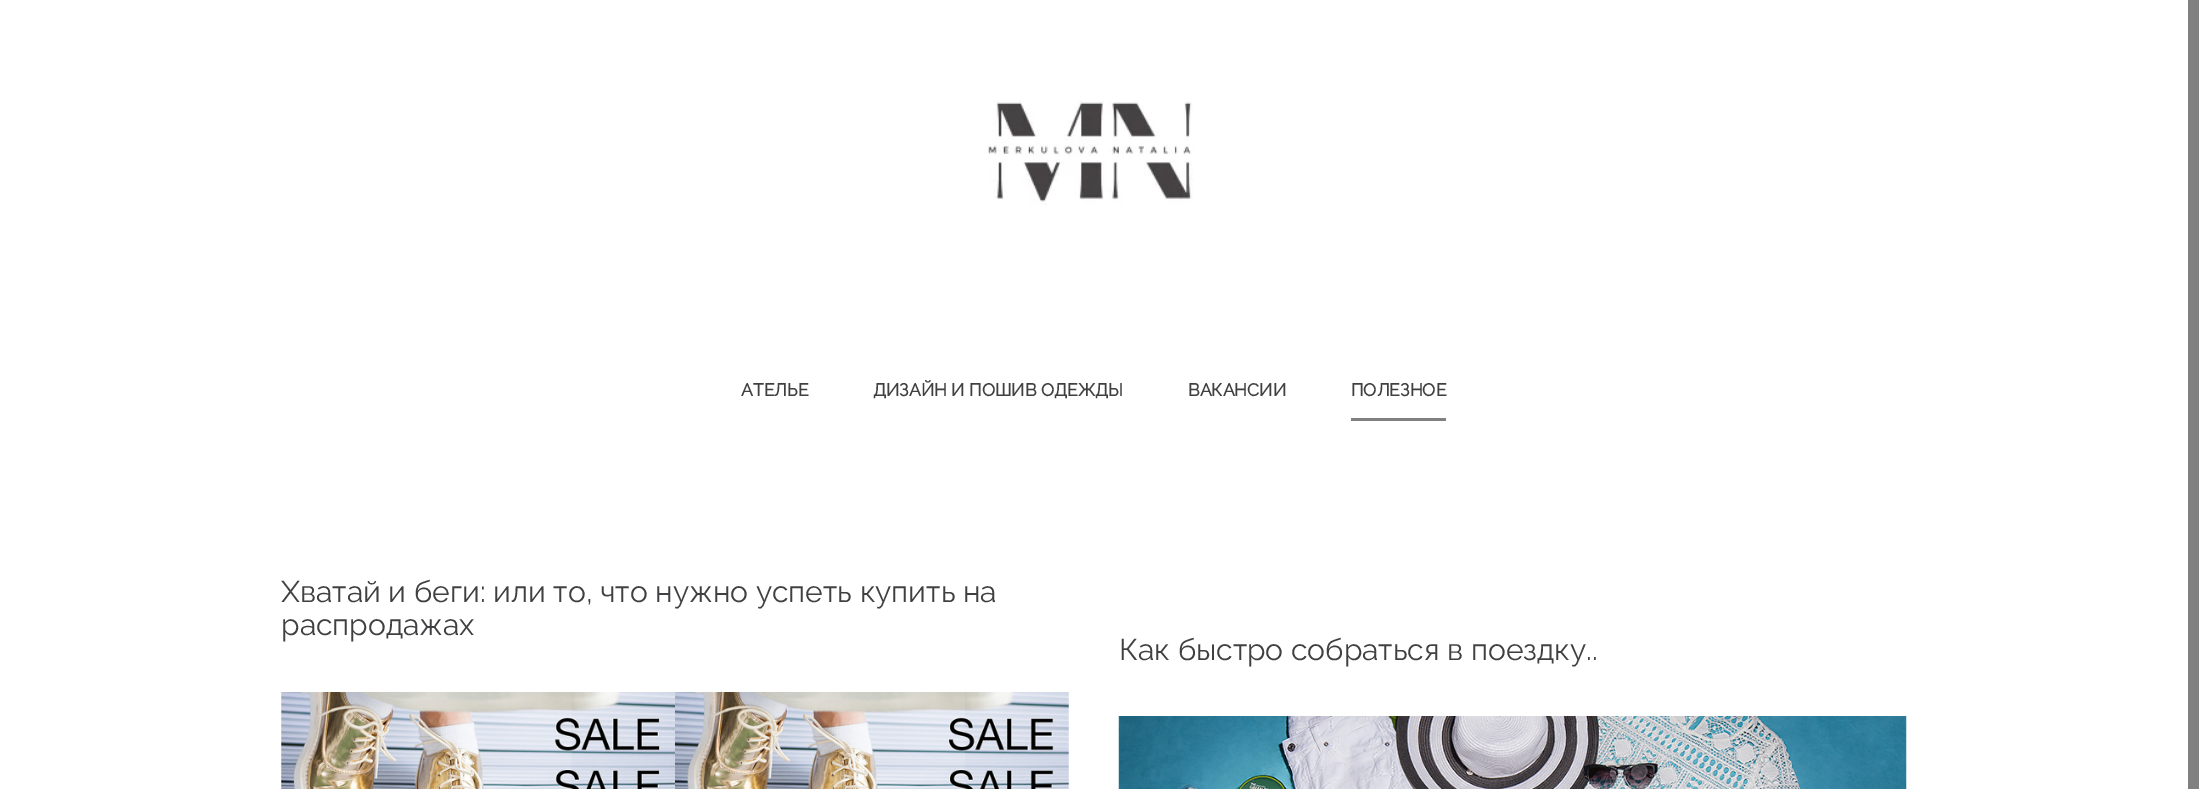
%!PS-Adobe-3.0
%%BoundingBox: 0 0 2199 789
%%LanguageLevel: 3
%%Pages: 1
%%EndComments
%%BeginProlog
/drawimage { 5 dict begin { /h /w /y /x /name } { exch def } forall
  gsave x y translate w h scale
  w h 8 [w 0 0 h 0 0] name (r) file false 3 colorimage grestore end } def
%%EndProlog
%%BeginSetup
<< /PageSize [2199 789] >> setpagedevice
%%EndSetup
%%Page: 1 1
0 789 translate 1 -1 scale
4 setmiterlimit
1 setgray
0 0 2199 789 rectfill
0.502 setgray
2188 0 11 789 rectfill
(images/1.raw) 988 100 206 105 drawimage
1351 418 95 3 rectfill
(images/2.raw) 281 692 788 97 drawimage
(images/3.raw) 1118 716 789 73 drawimage
/Raleway-Bold [17.5 0 0 -17.5 0 0] selectfont
0.251 0.251 0.259 setrgbcolor
741 396 moveto (АТЕЛЬЕ) show
873 396 moveto (ДИЗАЙН И ПОШИВ ОДЕЖДЫ) show
1188 396 moveto (ВАКАНСИИ) show
1351 396 moveto (ПОЛЕЗНОЕ) show
/Raleway-Thin [30 0 0 -30 0 0] selectfont
281 602 moveto (Хватай и беги: или то, что нужно успеть купить на) show
281 635 moveto (распродажах) show
1119 660 moveto (Как быстро собраться в поездку..) show
showpage
%%EOF
